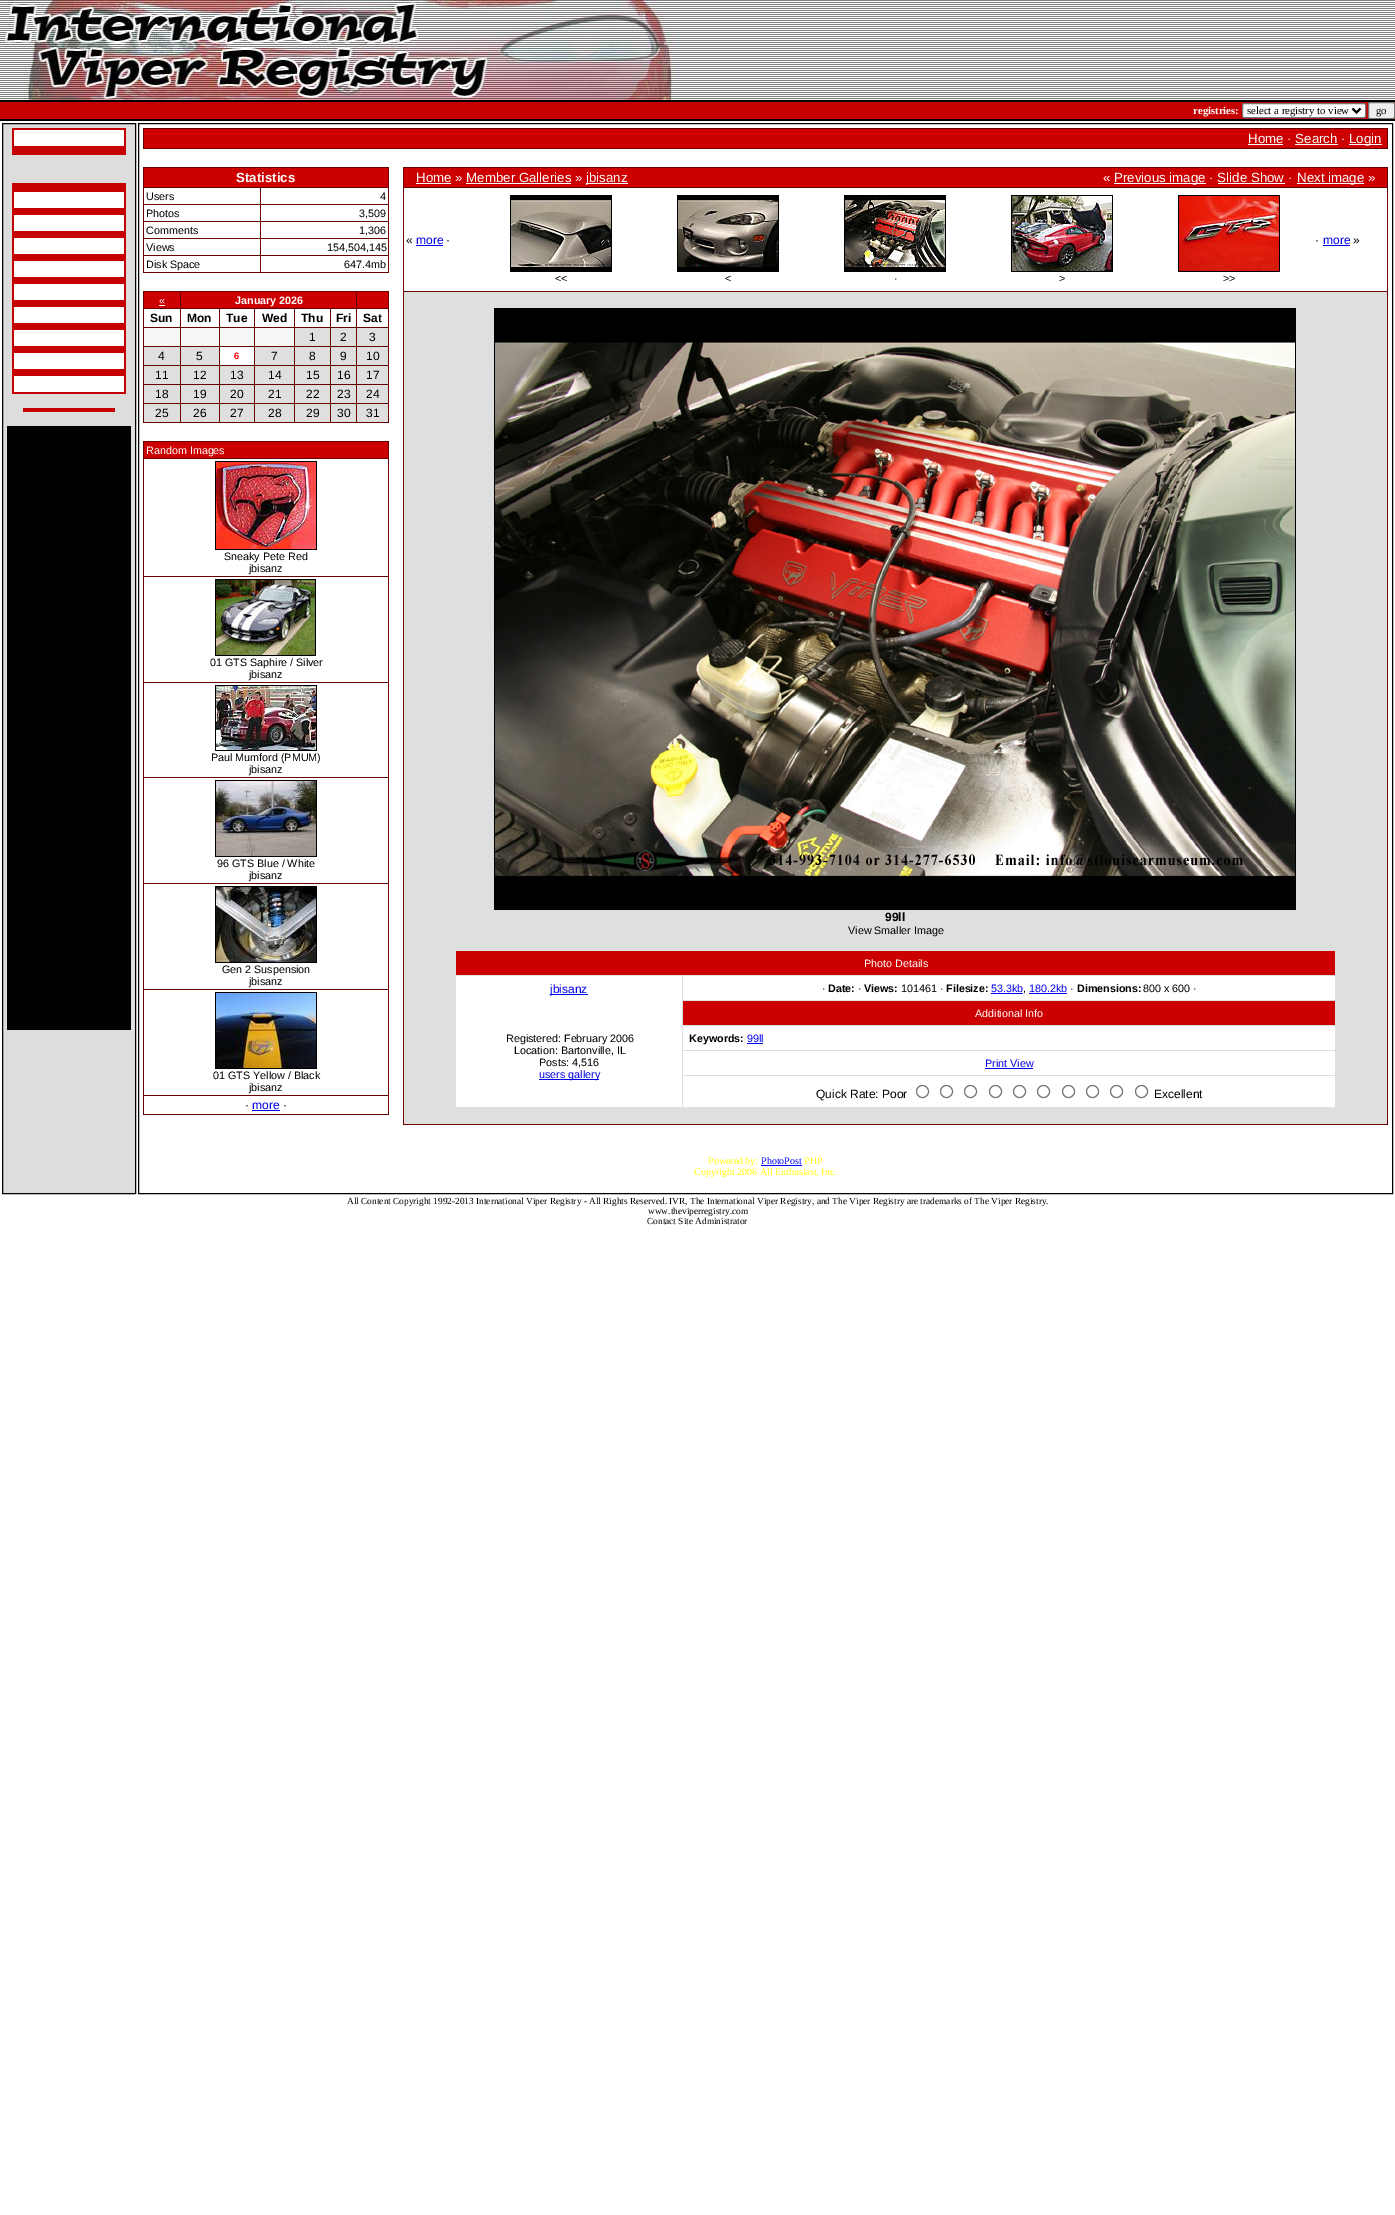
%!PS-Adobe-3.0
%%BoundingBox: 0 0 1395 2215
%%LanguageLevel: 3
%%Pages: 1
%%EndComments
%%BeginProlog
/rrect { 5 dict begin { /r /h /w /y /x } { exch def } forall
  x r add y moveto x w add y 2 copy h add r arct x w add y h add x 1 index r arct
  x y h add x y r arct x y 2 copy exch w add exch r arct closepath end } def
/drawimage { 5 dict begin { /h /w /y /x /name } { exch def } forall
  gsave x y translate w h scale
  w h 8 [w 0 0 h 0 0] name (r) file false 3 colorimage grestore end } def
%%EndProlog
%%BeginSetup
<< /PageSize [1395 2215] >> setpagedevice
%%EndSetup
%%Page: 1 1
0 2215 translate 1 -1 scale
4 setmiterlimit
1 setgray
0 0 1395 2215 rectfill
(images/1.raw) 679 0 716 99 drawimage
(images/2.raw) 0 0 679 100 drawimage
0 setgray
0 100 1395 2 rectfill
0.776 0 0 setrgbcolor
0 102 1395 17 rectfill
1 setgray
1242.5 103.5 123 14 1.5 rrect gsave fill grestore
0.463 setgray
stroke
0 setgray
2 setlinewidth
newpath 1352.5 108.5 moveto 1356.5 112.5 lineto 1360.5 108.5 lineto stroke
0.937 setgray
1368.5 102.5 26 16 1.5 rrect gsave fill grestore
0.463 setgray
1 setlinewidth
stroke
0 setgray
0 119 1395 2 rectfill
0.867 setgray
newpath 2.5 123.5 moveto 135.5 123.5 lineto 135.5 1193.5 lineto 2.5 1193.5 lineto closepath gsave fill grestore
0 setgray
stroke
0.776 0 0 setrgbcolor
12 128 114 27 rectfill
1 setgray
14 130 110 16 rectfill
0.776 0 0 setrgbcolor
12 183 114 211 rectfill
1 setgray
14 192 110 16 rectfill
14 215 110 16 rectfill
14 238 110 16 rectfill
14 261 110 16 rectfill
14 284 110 16 rectfill
14 307 110 16 rectfill
14 330 110 16 rectfill
14 353 110 16 rectfill
14 376 110 16 rectfill
0.776 0 0 setrgbcolor
23 408 92 4 rectfill
0 setgray
7 426 124 604 rectfill
138.5 123.5 1254 1070 rectstroke
0.4 0 0 setrgbcolor
143 128 1245 21 rectfill
0.8 0 0 setrgbcolor
144 129 1243 19 rectfill
1 setgray
1248 144 35 1 rectfill
1295 144 43 1 rectfill
1349 144 33 1 rectfill
0.4 0 0 setrgbcolor
143 167 246 106 rectfill
0.8 0 0 setrgbcolor
144 168 244 19 rectfill
1 setgray
144 188 116 16 rectfill
261 188 127 16 rectfill
144 205 116 16 rectfill
261 205 127 16 rectfill
144 222 116 16 rectfill
261 222 127 16 rectfill
144 239 116 16 rectfill
261 239 127 16 rectfill
144 256 116 16 rectfill
261 256 127 16 rectfill
0.4 0 0 setrgbcolor
143 291 246 132 rectfill
0.8 0 0 setrgbcolor
144 292 36 16 rectfill
1 setgray
159 305 6 1 rectfill
0.8 0 0 setrgbcolor
181 292 175 16 rectfill
357 292 31 16 rectfill
1 setgray
144 309 36 18 rectfill
181 309 38 18 rectfill
220 309 34 18 rectfill
255 309 39 18 rectfill
295 309 35 18 rectfill
331 309 25 18 rectfill
357 309 31 18 rectfill
0.969 setgray
144 328 36 18 rectfill
181 328 38 18 rectfill
220 328 34 18 rectfill
255 328 39 18 rectfill
0.875 setgray
295 328 35 18 rectfill
331 328 25 18 rectfill
357 328 31 18 rectfill
144 347 36 18 rectfill
181 347 38 18 rectfill
1 setgray
220 347 34 18 rectfill
0.875 setgray
255 347 39 18 rectfill
295 347 35 18 rectfill
331 347 25 18 rectfill
357 347 31 18 rectfill
144 366 36 18 rectfill
181 366 38 18 rectfill
220 366 34 18 rectfill
255 366 39 18 rectfill
295 366 35 18 rectfill
331 366 25 18 rectfill
357 366 31 18 rectfill
144 385 36 18 rectfill
181 385 38 18 rectfill
220 385 34 18 rectfill
255 385 39 18 rectfill
295 385 35 18 rectfill
331 385 25 18 rectfill
357 385 31 18 rectfill
144 404 36 18 rectfill
181 404 38 18 rectfill
220 404 34 18 rectfill
255 404 39 18 rectfill
295 404 35 18 rectfill
331 404 25 18 rectfill
357 404 31 18 rectfill
0.4 0 0 setrgbcolor
143 441 246 674 rectfill
0.8 0 0 setrgbcolor
144 442 244 16 rectfill
1 setgray
144 459 244 117 rectfill
0 setgray
215 461 102 89 rectfill
(images/3.raw) 216 462 100 87 drawimage
1 setgray
144 577 244 105 rectfill
0 setgray
215 579 101 77 rectfill
(images/4.raw) 216 580 99 75 drawimage
1 setgray
144 683 244 94 rectfill
0 setgray
215 685 102 66 rectfill
(images/5.raw) 216 686 100 64 drawimage
1 setgray
144 778 244 105 rectfill
0 setgray
215 780 102 77 rectfill
(images/6.raw) 216 781 100 75 drawimage
1 setgray
144 884 244 105 rectfill
0 setgray
215 886 102 77 rectfill
(images/7.raw) 216 887 100 75 drawimage
1 setgray
144 990 244 105 rectfill
0 setgray
215 992 102 77 rectfill
(images/8.raw) 216 993 100 75 drawimage
1 setgray
144 1096 244 18 rectfill
0 0 0.933 setrgbcolor
252 1110 28 1 rectfill
0.4 0 0 setrgbcolor
403 167 985 958 rectfill
0.8 0 0 setrgbcolor
404 168 983 19 rectfill
1 setgray
416 183 35 1 rectfill
466 183 105 1 rectfill
586 183 42 1 rectfill
1114 183 92 1 rectfill
1218 183 67 1 rectfill
1297 183 67 1 rectfill
404 188 983 103 rectfill
0 0 0.933 setrgbcolor
416 245 27 1 rectfill
1323 245 27 1 rectfill
0 setgray
510 195 102 77 rectfill
(images/9.raw) 511 196 100 72 drawimage
677 195 102 77 rectfill
(images/10.raw) 678 196 100 72 drawimage
844 195 102 77 rectfill
(images/11.raw) 845 196 100 72 drawimage
1011 195 102 77 rectfill
(images/12.raw) 1012 196 100 75 drawimage
1178 195 102 77 rectfill
(images/13.raw) 1179 196 100 75 drawimage
0.871 0.875 0.875 setrgbcolor
404 292 983 832 rectfill
0 setgray
494 308 802 602 rectfill
(images/14.raw) 495 309 800 600 drawimage
0.8 0 0 setrgbcolor
456 951 879 24 rectfill
1 setgray
456 976 226 131 rectfill
0 0 0.933 setrgbcolor
550 994 38 1 rectfill
539 1079 60 1 rectfill
1 setgray
683 976 652 24 rectfill
0 0 0.933 setrgbcolor
991 993 32 1 rectfill
1029 993 38 1 rectfill
0.8 0 0 setrgbcolor
683 1001 652 24 rectfill
1 setgray
683 1026 652 24 rectfill
0 0 0.933 setrgbcolor
747 1043 16 1 rectfill
1 setgray
683 1051 652 24 rectfill
0 0 0.933 setrgbcolor
985 1068 48 1 rectfill
1 setgray
683 1076 652 31 rectfill
0.463 setgray
newpath 922.5 1091.5 6 0 360 arc closepath stroke
newpath 946.5 1091.5 6 0 360 arc closepath stroke
newpath 970.5 1091.5 6 0 360 arc closepath stroke
newpath 995.5 1091.5 6 0 360 arc closepath stroke
newpath 1019.5 1091.5 6 0 360 arc closepath stroke
newpath 1043.5 1091.5 6 0 360 arc closepath stroke
newpath 1068.5 1091.5 6 0 360 arc closepath stroke
newpath 1092.5 1091.5 6 0 360 arc closepath stroke
newpath 1116.5 1091.5 6 0 360 arc closepath stroke
newpath 1141.5 1091.5 6 0 360 arc closepath stroke
0 0 1 setrgbcolor
761 1165 41 1 rectfill
/LiberationSerif-Bold [10.75 0 0 -10.75 0 0] selectfont
1 setgray
1193 114 moveto (registries:) show
/LiberationSerif-Regular [10.75 0 0 -10.75 0 0] selectfont
0 setgray
1247 114 moveto (select a registry to view) show
1376 114 moveto (go) show
/LiberationSans-Regular [13.3 0 0 -13.3 0 0] selectfont
1 setgray
1248 143 moveto (Home · Search ·) show
1349 143 moveto (Login) show
/LiberationSans-Bold [13.3 0 0 -13.3 0 0] selectfont
236 182 moveto (Statistics) show
/LiberationSans-Regular [10.75 0 0 -10.75 0 0] selectfont
0 setgray
146 200 moveto (Users) show
380 200 moveto (4) show
146 217 moveto (Photos) show
359 217 moveto (3,509) show
146 234 moveto (Comments) show
359 234 moveto (1,306) show
146 251 moveto (Views) show
327 251 moveto (154,504,145) show
146 268 moveto (Disk Space) show
344 268 moveto (647.4mb) show
1 setgray
159 304 moveto («) show
/LiberationSans-Bold [10.75 0 0 -10.75 0 0] selectfont
235 304 moveto (January 2026) show
/LiberationSans-Bold [12 0 0 -12 0 0] selectfont
0 setgray
150 322 moveto (Sun) show
187 322 moveto (Mon) show
226 322 moveto (Tue) show
262 322 moveto (Wed) show
301 322 moveto (Thu) show
336 322 moveto (Fri) show
363 322 moveto (Sat) show
/LiberationSans-Regular [12 0 0 -12 0 0] selectfont
309 341 moveto (1) show
340 341 moveto (2) show
369 341 moveto (3) show
158 360 moveto (4) show
196 360 moveto (5) show
/LiberationSans-Bold [9.33 0 0 -9.33 0 0] selectfont
1 0 0 setrgbcolor
234 359 moveto (6) show
/LiberationSans-Regular [12 0 0 -12 0 0] selectfont
0 setgray
271 360 moveto (7) show
309 360 moveto (8) show
340 360 moveto (9) show
366 360 moveto (10) show
155 379 moveto (11) show
193 379 moveto (12) show
230 379 moveto (13) show
268 379 moveto (14) show
306 379 moveto (15) show
337 379 moveto (16) show
366 379 moveto (17) show
155 398 moveto (18) show
193 398 moveto (19) show
230 398 moveto (20) show
268 398 moveto (21) show
306 398 moveto (22) show
337 398 moveto (23) show
366 398 moveto (24) show
155 417 moveto (25) show
193 417 moveto (26) show
230 417 moveto (27) show
268 417 moveto (28) show
306 417 moveto (29) show
337 417 moveto (30) show
366 417 moveto (31) show
/LiberationSans-Regular [10.75 0 0 -10.75 0 0] selectfont
1 setgray
146 454 moveto (Random Images) show
0 setgray
224 560 moveto (Sneaky Pete Red) show
249 572 moveto (jbisanz) show
210 666 moveto (01 GTS Saphire / Silver) show
249 678 moveto (jbisanz) show
211 761 moveto (Paul Mumford \(PMUM\)) show
249 773 moveto (jbisanz) show
217 867 moveto (96 GTS Blue / White) show
249 879 moveto (jbisanz) show
222 973 moveto (Gen 2 Suspension) show
249 985 moveto (jbisanz) show
213 1079 moveto (01 GTS Yellow / Black) show
249 1091 moveto (jbisanz) show
/LiberationSans-Regular [12 0 0 -12 0 0] selectfont
245 1109 moveto (·) show
0 0 0.933 setrgbcolor
252 1109 moveto (more) show
0 setgray
283 1109 moveto (·) show
/LiberationSans-Regular [13.3 0 0 -13.3 0 0] selectfont
1 setgray
416 182 moveto (Home » Member Galleries ») show
586 182 moveto (jbisanz) show
1103 182 moveto («) show
1114 182 moveto (Previous image · Slide Show ·) show
1297 182 moveto (Next image ») show
/LiberationSans-Regular [12 0 0 -12 0 0] selectfont
0 setgray
406 244 moveto («) show
0 0 0.933 setrgbcolor
416 244 moveto (more) show
0 setgray
446 244 moveto (·) show
1315 244 moveto (·) show
0 0 0.933 setrgbcolor
1323 244 moveto (more) show
0 setgray
1353 244 moveto (») show
/LiberationSans-Regular [10.75 0 0 -10.75 0 0] selectfont
555 282 moveto (<<) show
725 282 moveto (<) show
894 282 moveto (·) show
1059 282 moveto (>) show
1223 282 moveto (>>) show
/LiberationSans-Bold [12 0 0 -12 0 0] selectfont
885 921 moveto (99ll) show
/LiberationSans-Regular [10.75 0 0 -10.75 0 0] selectfont
848 934 moveto (View Smaller Image) show
1 setgray
864 967 moveto (Photo Details) show
/LiberationSans-Regular [12 0 0 -12 0 0] selectfont
0 0 0.933 setrgbcolor
550 993 moveto (jbisanz) show
/LiberationSans-Regular [10.75 0 0 -10.75 0 0] selectfont
0 setgray
506 1042 moveto (Registered: February 2006) show
514 1054 moveto (Location: Bartonville, IL) show
539 1066 moveto (Posts: 4,516) show
0 0 0.933 setrgbcolor
539 1078 moveto (users gallery) show
0 setgray
822 992 moveto (·) show
/LiberationSans-Bold [10.75 0 0 -10.75 0 0] selectfont
828 992 moveto (Date:) show
/LiberationSans-Regular [10.75 0 0 -10.75 0 0] selectfont
858 992 moveto (·) show
/LiberationSans-Bold [10.75 0 0 -10.75 0 0] selectfont
864 992 moveto (Views:) show
/LiberationSans-Regular [10.75 0 0 -10.75 0 0] selectfont
901 992 moveto (101461 ·) show
/LiberationSans-Bold [10.75 0 0 -10.75 0 0] selectfont
946 992 moveto (Filesize:) show
/LiberationSans-Regular [10.75 0 0 -10.75 0 0] selectfont
0 0 0.933 setrgbcolor
991 992 moveto (53.3kb) show
1029 992 moveto (180.2kb) show
0 setgray
1070 992 moveto (·) show
/LiberationSans-Bold [10.75 0 0 -10.75 0 0] selectfont
1077 992 moveto (Dimensions:) show
/LiberationSans-Regular [10.75 0 0 -10.75 0 0] selectfont
1143 992 moveto (800 x 600 ·) show
1023 992 moveto (,) show
1 setgray
975 1017 moveto (Additional Info) show
/LiberationSans-Bold [10.75 0 0 -10.75 0 0] selectfont
0 setgray
689 1042 moveto (Keywords:) show
/LiberationSans-Regular [10.75 0 0 -10.75 0 0] selectfont
0 0 0.933 setrgbcolor
747 1042 moveto (99ll) show
985 1067 moveto (Print View) show
/LiberationSans-Regular [12 0 0 -12 0 0] selectfont
0 setgray
816 1098 moveto (Quick Rate: Poor) show
1154 1098 moveto (Excellent) show
/LiberationSerif-Regular [10 0 0 -10 0 0] selectfont
1 1 0 setrgbcolor
708 1164 moveto (Powered by:) show
0 0 1 setrgbcolor
761 1164 moveto (PhotoPost) show
1 1 0 setrgbcolor
804 1164 moveto (PHP) show
694 1175 moveto (Copyright 2006 All Enthusiast, Inc.) show
/LiberationSerif-Regular [9.33 0 0 -9.33 0 0] selectfont
0 setgray
347 1204 moveto (All Content Copyright 1992-2013 International Viper Registry - All Rights Reserved. IVR, The International Viper Registry, and The Viper Registry are trademarks of The Viper Registry.) show
648 1214 moveto (www.theviperregistry.com) show
647 1224 moveto (Contact Site Administrator) show
showpage
%%EOF
